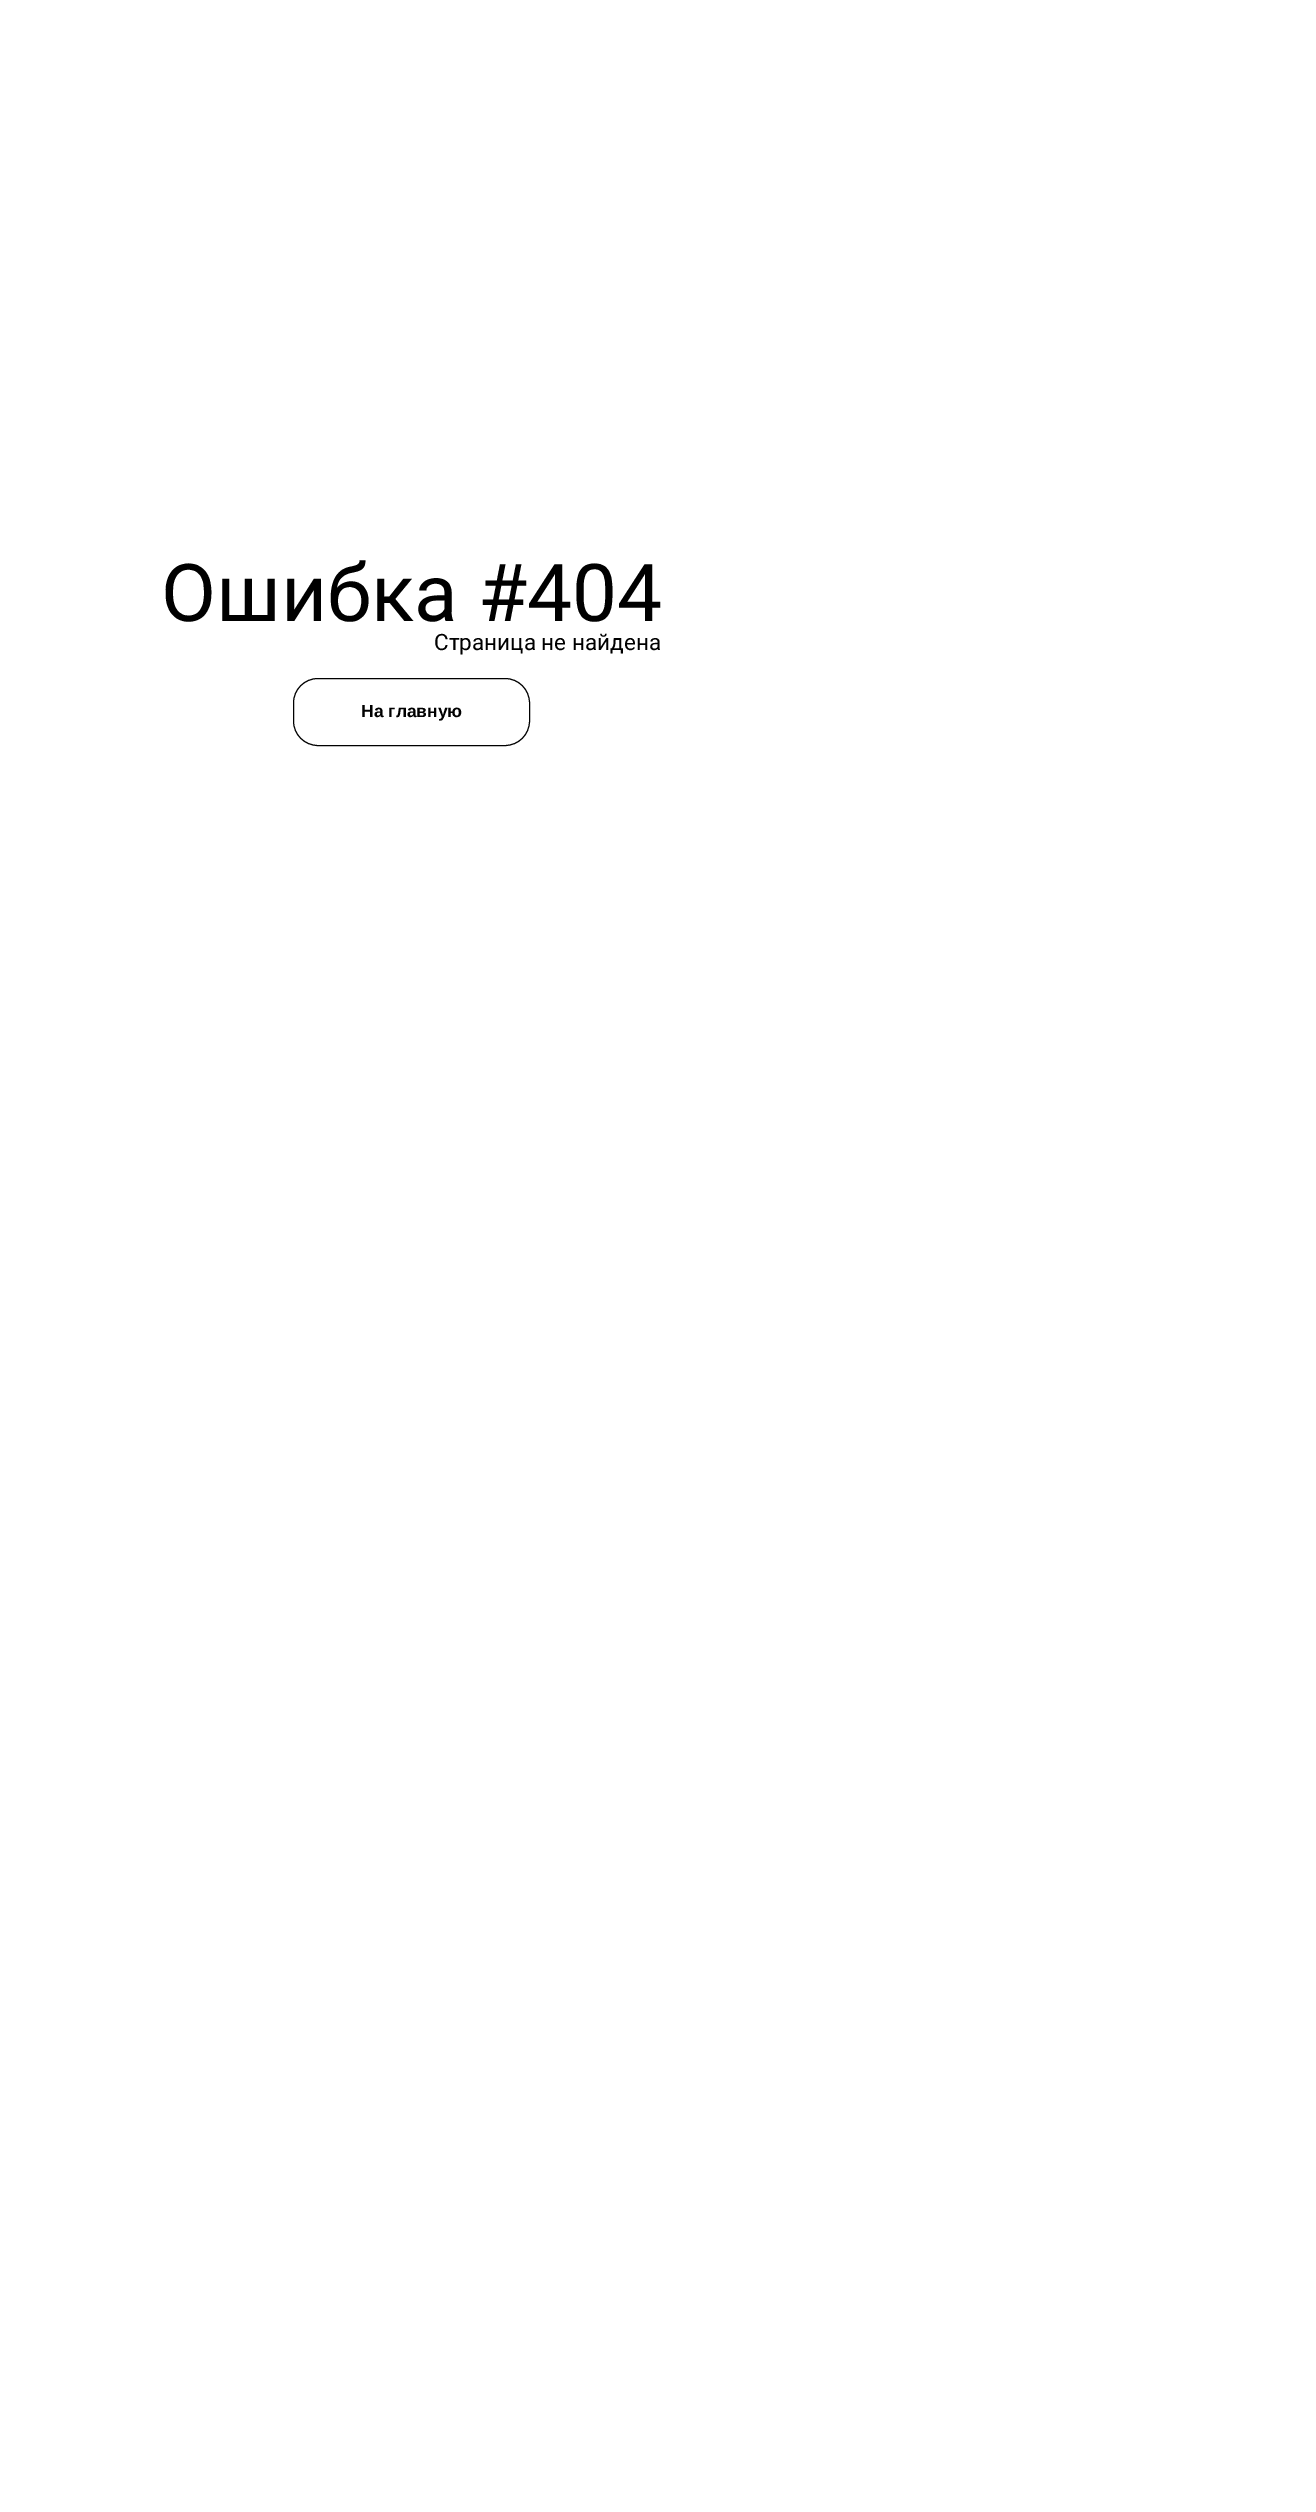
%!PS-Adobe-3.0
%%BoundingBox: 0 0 1316 2512
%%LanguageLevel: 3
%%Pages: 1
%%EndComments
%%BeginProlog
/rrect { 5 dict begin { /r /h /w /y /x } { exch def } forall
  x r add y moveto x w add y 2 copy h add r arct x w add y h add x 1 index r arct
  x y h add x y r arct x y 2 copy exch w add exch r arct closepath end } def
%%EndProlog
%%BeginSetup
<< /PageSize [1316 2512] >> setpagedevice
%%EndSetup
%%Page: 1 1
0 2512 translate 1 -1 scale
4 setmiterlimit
1 setgray
0 0 1316 2512 rectfill
0 setgray
293.5 678.5 236 67 24.5 rrect stroke
/Roboto-Regular [80 0 0 -80 0 0] selectfont
161 621 moveto (Ошибка #404) show
/Roboto-Regular [22.5 0 0 -22.5 0 0] selectfont
434 650 moveto (Страница не найдена) show
/LiberationSans-Bold [17.5 0 0 -17.5 0 0] selectfont
361 717 moveto (На главную) show
showpage
%%EOF
